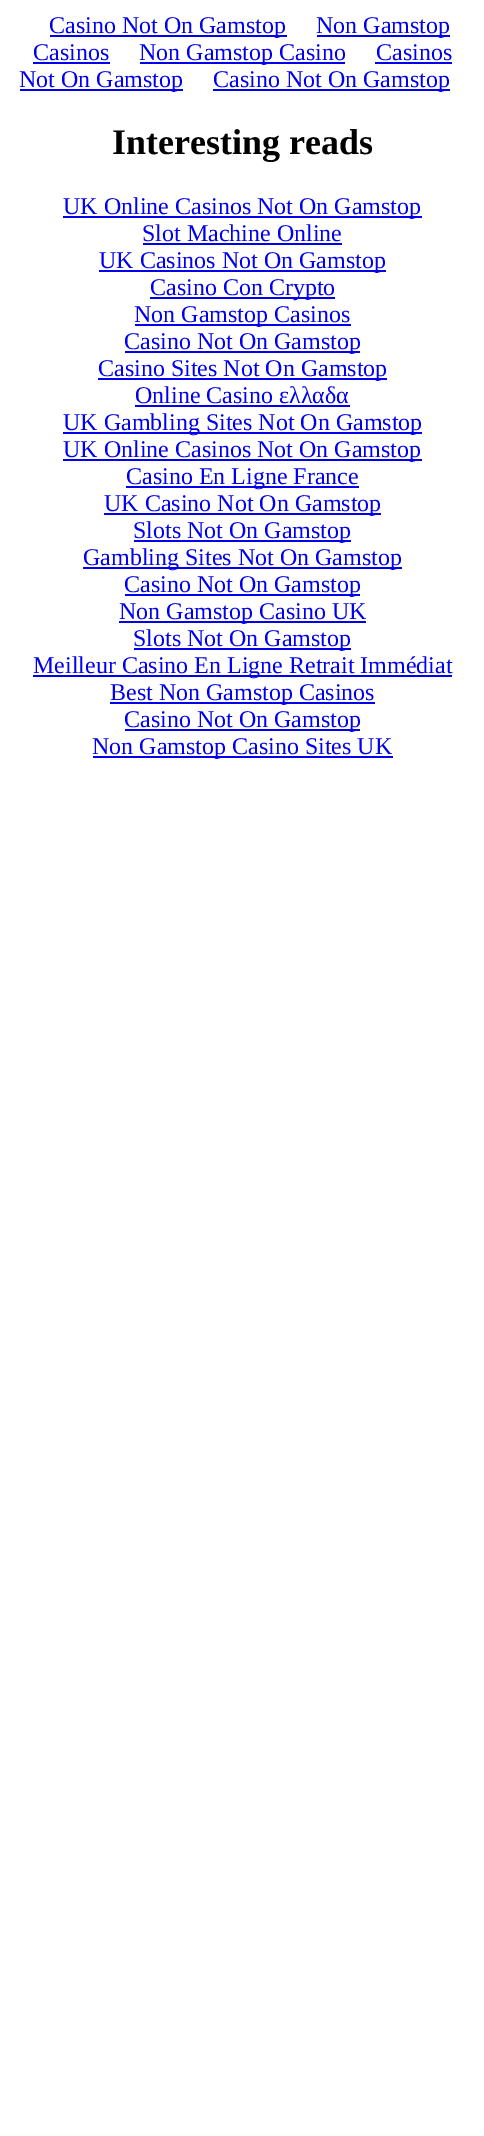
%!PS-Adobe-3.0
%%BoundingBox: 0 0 484 2136
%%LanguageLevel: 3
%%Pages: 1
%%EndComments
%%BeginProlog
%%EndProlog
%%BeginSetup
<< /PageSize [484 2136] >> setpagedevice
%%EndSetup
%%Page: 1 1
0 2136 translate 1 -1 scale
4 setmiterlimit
1 setgray
0 0 484 2136 rectfill
0 0 0.933 setrgbcolor
50 35 237 2 rectfill
317 35 133 2 rectfill
33 62 77 2 rectfill
140 62 205 2 rectfill
375 62 77 2 rectfill
20 89 163 2 rectfill
213 89 237 2 rectfill
63 216 359 2 rectfill
143 243 199 2 rectfill
99 270 287 2 rectfill
150 297 185 2 rectfill
135 324 216 2 rectfill
125 351 235 2 rectfill
98 378 289 2 rectfill
135 405 215 2 rectfill
63 432 359 2 rectfill
63 459 359 2 rectfill
126 486 233 2 rectfill
104 513 277 2 rectfill
134 540 217 2 rectfill
83 567 319 2 rectfill
125 594 235 2 rectfill
119 621 247 2 rectfill
134 648 217 2 rectfill
33 675 419 2 rectfill
110 702 265 2 rectfill
125 729 235 2 rectfill
93 756 300 2 rectfill
/LiberationSerif-Regular [24 0 0 -24 0 0] selectfont
49 33 moveto (Casino Not On Gamstop) show
316 33 moveto (Non Gamstop) show
33 60 moveto (Casinos) show
139 60 moveto (Non Gamstop Casino) show
376 60 moveto (Casinos) show
19 87 moveto (Not On Gamstop) show
213 87 moveto (Casino Not On Gamstop) show
/LiberationSerif-Bold [36 0 0 -36 0 0] selectfont
0 setgray
112 154 moveto (Interesting reads) show
/LiberationSerif-Regular [24 0 0 -24 0 0] selectfont
0 0 0.933 setrgbcolor
63 214 moveto (UK Online Casinos Not On Gamstop) show
142 241 moveto (Slot Machine Online) show
99 268 moveto (UK Casinos Not On Gamstop) show
150 295 moveto (Casino Con Crypto) show
134 322 moveto (Non Gamstop Casinos) show
124 349 moveto (Casino Not On Gamstop) show
98 376 moveto (Casino Sites Not On Gamstop) show
135 403 moveto (Online Casino ελλαδα) show
63 430 moveto (UK Gambling Sites Not On Gamstop) show
63 457 moveto (UK Online Casinos Not On Gamstop) show
126 484 moveto (Casino En Ligne France) show
104 511 moveto (UK Casino Not On Gamstop) show
133 538 moveto (Slots Not On Gamstop) show
83 565 moveto (Gambling Sites Not On Gamstop) show
124 592 moveto (Casino Not On Gamstop) show
119 619 moveto (Non Gamstop Casino UK) show
133 646 moveto (Slots Not On Gamstop) show
33 673 moveto (Meilleur Casino En Ligne Retrait Immédiat) show
110 700 moveto (Best Non Gamstop Casinos) show
124 727 moveto (Casino Not On Gamstop) show
92 754 moveto (Non Gamstop Casino Sites UK) show
showpage
%%EOF
